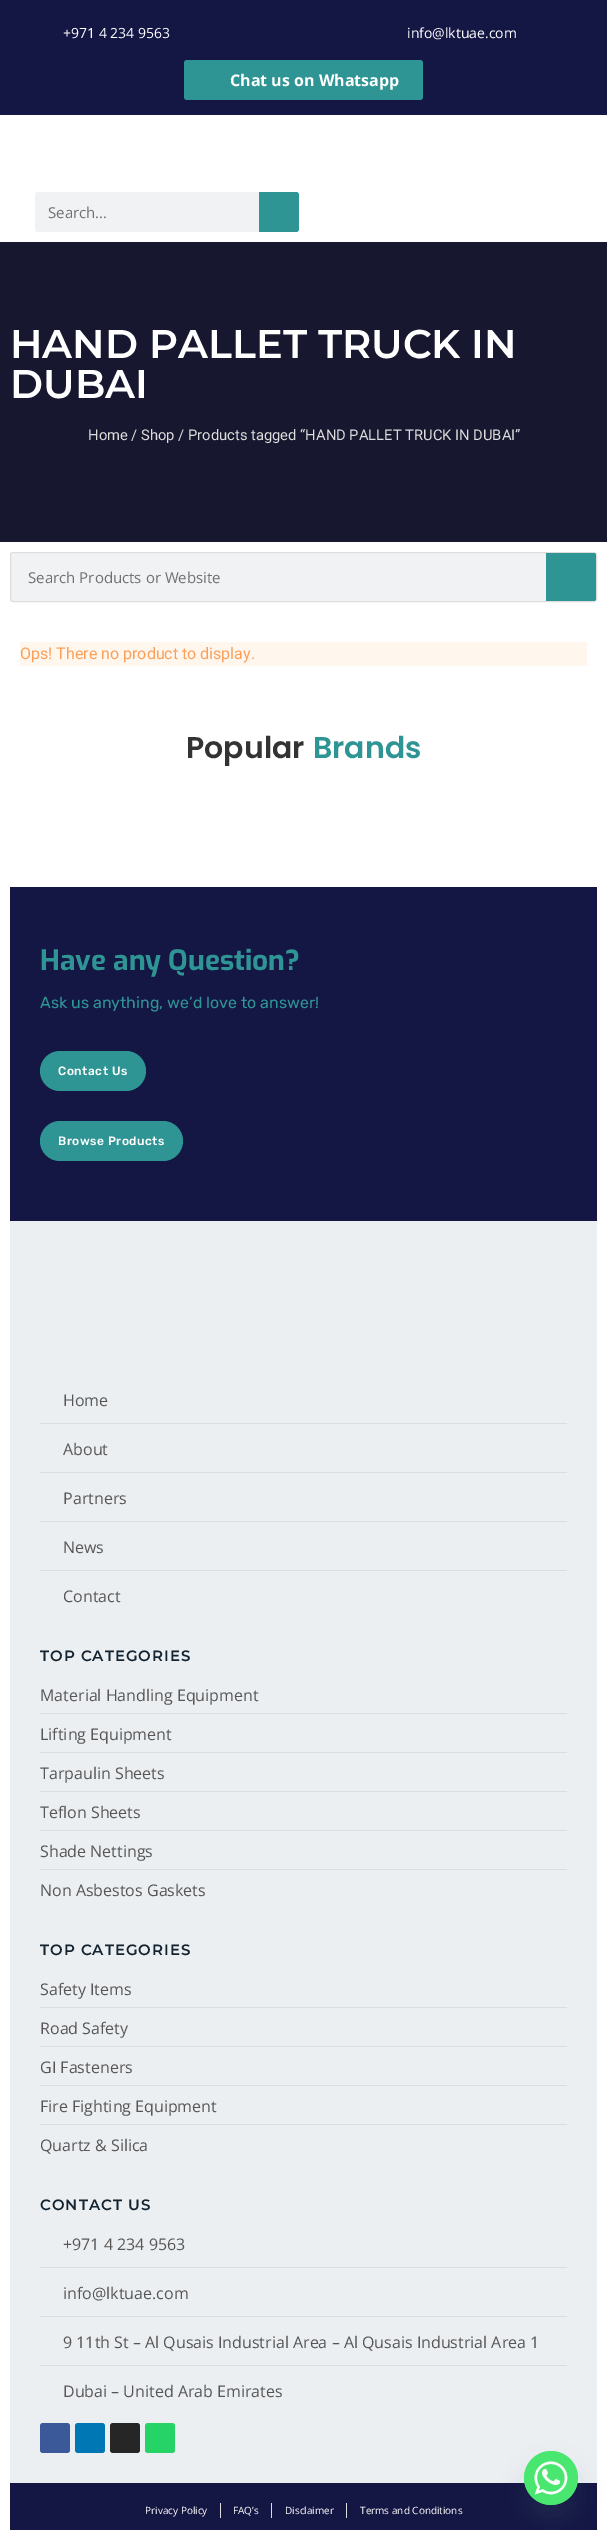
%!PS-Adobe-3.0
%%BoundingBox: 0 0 607 2530
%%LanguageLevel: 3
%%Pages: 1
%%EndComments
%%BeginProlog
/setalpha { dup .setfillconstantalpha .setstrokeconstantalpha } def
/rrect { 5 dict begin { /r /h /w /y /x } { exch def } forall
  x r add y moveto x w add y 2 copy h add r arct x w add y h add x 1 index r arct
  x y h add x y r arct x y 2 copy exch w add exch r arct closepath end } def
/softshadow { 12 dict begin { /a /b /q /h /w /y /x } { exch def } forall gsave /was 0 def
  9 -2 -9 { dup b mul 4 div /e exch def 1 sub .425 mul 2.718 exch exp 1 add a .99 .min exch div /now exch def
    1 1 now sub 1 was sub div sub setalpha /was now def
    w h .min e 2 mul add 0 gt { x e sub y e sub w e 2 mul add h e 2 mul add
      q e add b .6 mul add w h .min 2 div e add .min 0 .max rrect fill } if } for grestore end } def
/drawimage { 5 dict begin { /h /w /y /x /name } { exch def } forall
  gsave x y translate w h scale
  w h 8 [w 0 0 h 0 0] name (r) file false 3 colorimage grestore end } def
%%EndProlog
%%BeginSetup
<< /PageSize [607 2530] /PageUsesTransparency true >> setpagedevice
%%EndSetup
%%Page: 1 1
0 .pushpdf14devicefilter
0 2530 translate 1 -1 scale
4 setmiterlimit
1 setgray
0 0 607 2530 rectfill
0.078 0.086 0.267 setrgbcolor
0 0 607 115 rectfill
0.184 0.584 0.58 setrgbcolor
184 60 239 40 3 rrect fill
0.945 0.949 0.953 setrgbcolor
35 192 264 40 3 rrect fill
0.184 0.584 0.58 setrgbcolor
newpath 259 192 moveto 296 192 lineto 297.5 192 299 193.5 299 195 curveto 299 229 lineto 299 230.5 297.5 232 296 232 curveto 259 232 lineto closepath fill
0.09 0.094 0.184 setrgbcolor
0 242 607 300 rectfill
0.945 0.949 0.953 setrgbcolor
10.5 552.5 586 49 2.5 rrect gsave fill grestore
0.867 setgray
stroke
0.184 0.584 0.58 setrgbcolor
newpath 546 553 moveto 594 553 lineto 595 553 596 554 596 555 curveto 596 599 lineto 596 600 595 601 594 601 curveto 546 601 lineto closepath fill
1 0.965 0.933 setrgbcolor
20 642 567 24 rectfill
0.078 0.086 0.267 setrgbcolor
10 887 587 334 rectfill
0.184 0.584 0.58 setrgbcolor
40 1051 106 40 20 rrect fill
40 1121 143 40 20 rrect fill
0.922 0.937 0.945 setrgbcolor
10 1221 587 1262 rectfill
0.867 setgray
40 1423 527 1 rectfill
40 1472 527 1 rectfill
40 1521 527 1 rectfill
40 1570 527 1 rectfill
40 1713 527 1 rectfill
40 1752 527 1 rectfill
40 1791 527 1 rectfill
40 1830 527 1 rectfill
40 1869 527 1 rectfill
40 2007 527 1 rectfill
40 2046 527 1 rectfill
40 2085 527 1 rectfill
40 2124 527 1 rectfill
40 2267 527 1 rectfill
40 2316 527 1 rectfill
40 2365 527 1 rectfill
0.231 0.349 0.596 setrgbcolor
40 2423 30 30 3 rrect fill
0 0.467 0.71 setrgbcolor
75 2423 30 30 3 rrect fill
0.149 setgray
110 2423 30 30 3 rrect fill
0.145 0.827 0.4 setrgbcolor
145 2423 30 30 3 rrect fill
0.078 0.086 0.267 setrgbcolor
10 2483 587 47 rectfill
0.867 setgray
220 2503 1 15 rectfill
271 2503 1 15 rectfill
346 2503 1 15 rectfill
0.286 0.408 0.494 setrgbcolor
524 2467 54 54 27 12 0.16 softshadow
(images/1.raw) 524 2451 54 54 drawimage
/OpenSans-Regular [14 0 0 -14 0 0] selectfont
1 setgray
63 38 moveto (+971 4 234 9563) show
407 38 moveto (info@lktuae.com) show
/OpenSans-Bold [16 0 0 -16 0 0] selectfont
230 86 moveto (Chat us on Whatsapp) show
/OpenSans-Regular [15 0 0 -15 0 0] selectfont
0.435 0.439 0.443 setrgbcolor
48 218 moveto (Search...) show
/Montserrat-SemiBold [40 0 0 -40 0 0] selectfont
1 setgray
10 358 moveto (HAND PALLET TRUCK IN) show
10 398 moveto (DUBAI) show
/Roboto-Regular [14.75 0 0 -14.75 0 0] selectfont
0.867 setgray
88 440 moveto (Home / Shop / Products tagged “HAND PALLET TRUCK IN DUBAI”) show
/OpenSans-Regular [15 0 0 -15 0 0] selectfont
0.435 0.439 0.443 setrgbcolor
28 583 moveto (Search Products or Website) show
/Roboto-Regular [16 0 0 -16 0 0] selectfont
0.98 0.627 0.353 setrgbcolor
20 659 moveto (Ops! There no product to display.) show
/Poppins-SemiBold [30 0 0 -30 0 0] selectfont
0.2 setgray
186 758 moveto (Popular) show
0.184 0.584 0.58 setrgbcolor
313 758 moveto (Brands) show
/Exo-Bold [28 0 0 -28 0 0] selectfont
40 970 moveto (Have any Question?) show
/Rubik-Regular [16 0 0 -16 0 0] selectfont
40 1008 moveto (Ask us anything, we’d love to answer!) show
/Rubik-Medium [12 0 0 -12 0 0] selectfont
1 setgray
58 1075 moveto 0.5 0 (Contact Us) ashow
58 1145 moveto 0.5 0 (Browse Products) ashow
/OpenSans-Regular [16 0 0 -16 0 0] selectfont
0.341 0.333 0.333 setrgbcolor
63 1406 moveto (Home) show
63 1455 moveto (About) show
63 1504 moveto (Partners) show
63 1553 moveto (News) show
63 1602 moveto (Contact) show
/Montserrat-SemiBold [15 0 0 -15 0 0] selectfont
0.078 0.137 0.188 setrgbcolor
40 1661 moveto 1 0 (TOP CATEGORIES) ashow
/OpenSans-Regular [16 0 0 -16 0 0] selectfont
0.341 0.333 0.333 setrgbcolor
40 1701 moveto (Material Handling Equipment) show
40 1740 moveto (Lifting Equipment) show
40 1779 moveto (Tarpaulin Sheets) show
40 1818 moveto (Teflon Sheets) show
40 1857 moveto (Shade Nettings) show
40 1896 moveto (Non Asbestos Gaskets) show
/Montserrat-SemiBold [15 0 0 -15 0 0] selectfont
0.078 0.137 0.188 setrgbcolor
40 1955 moveto 1 0 (TOP CATEGORIES) ashow
/OpenSans-Regular [16 0 0 -16 0 0] selectfont
0.341 0.333 0.333 setrgbcolor
40 1995 moveto (Safety Items) show
40 2034 moveto (Road Safety) show
40 2073 moveto (GI Fasteners) show
40 2112 moveto (Fire Fighting Equipment) show
40 2151 moveto (Quartz & Silica) show
/Montserrat-SemiBold [15 0 0 -15 0 0] selectfont
0.078 0.137 0.188 setrgbcolor
40 2210 moveto 1 0 (CONTACT US) ashow
/OpenSans-Regular [16 0 0 -16 0 0] selectfont
0.341 0.333 0.333 setrgbcolor
63 2250 moveto (+971 4 234 9563) show
63 2299 moveto (info@lktuae.com) show
63 2348 moveto (9 11th St – Al Qusais Industrial Area – Al Qusais Industrial Area 1) show
63 2397 moveto (Dubai – United Arab Emirates) show
/OpenSans-Regular [10 0 0 -10 0 0] selectfont
1 setgray
145 2514 moveto (Privacy Policy) show
233 2514 moveto (FAQ’s) show
285 2514 moveto (Disclaimer) show
360 2514 moveto (Terms and Conditions) show
.poppdf14devicefilter showpage
%%EOF
